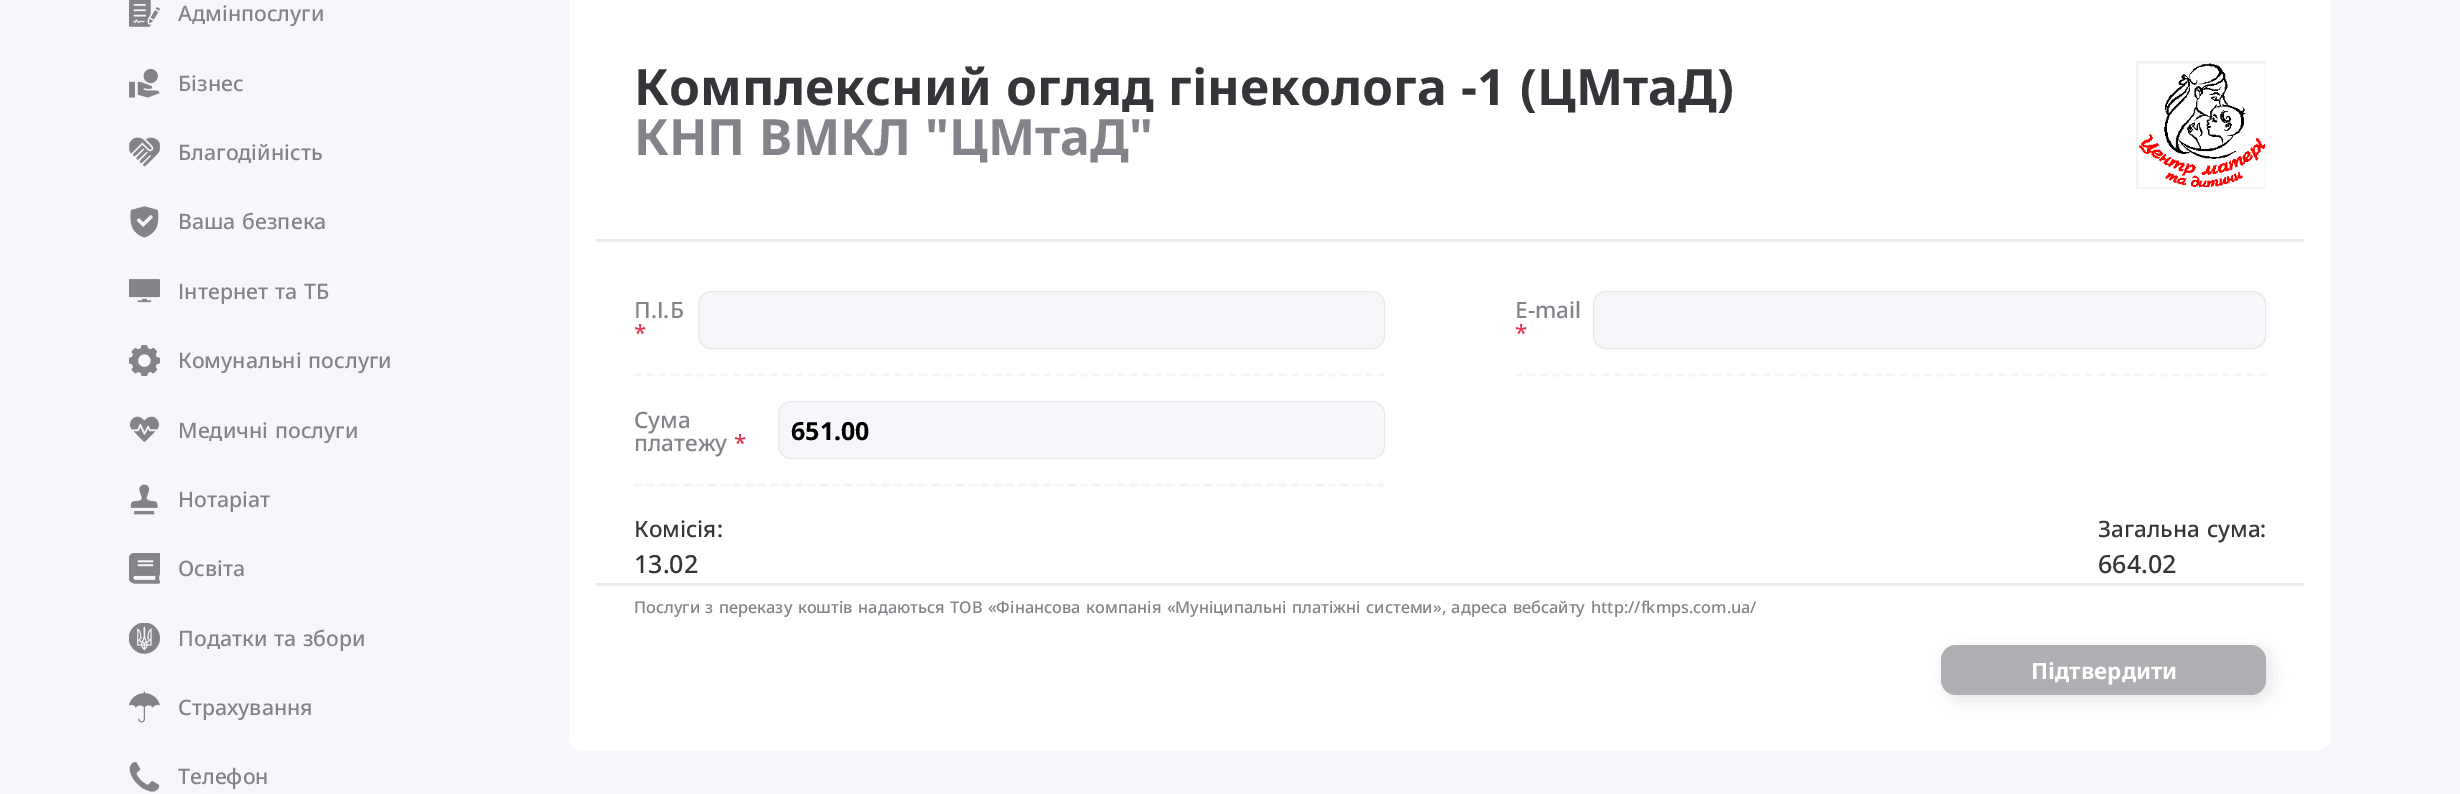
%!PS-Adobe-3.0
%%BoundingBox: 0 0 2460 794
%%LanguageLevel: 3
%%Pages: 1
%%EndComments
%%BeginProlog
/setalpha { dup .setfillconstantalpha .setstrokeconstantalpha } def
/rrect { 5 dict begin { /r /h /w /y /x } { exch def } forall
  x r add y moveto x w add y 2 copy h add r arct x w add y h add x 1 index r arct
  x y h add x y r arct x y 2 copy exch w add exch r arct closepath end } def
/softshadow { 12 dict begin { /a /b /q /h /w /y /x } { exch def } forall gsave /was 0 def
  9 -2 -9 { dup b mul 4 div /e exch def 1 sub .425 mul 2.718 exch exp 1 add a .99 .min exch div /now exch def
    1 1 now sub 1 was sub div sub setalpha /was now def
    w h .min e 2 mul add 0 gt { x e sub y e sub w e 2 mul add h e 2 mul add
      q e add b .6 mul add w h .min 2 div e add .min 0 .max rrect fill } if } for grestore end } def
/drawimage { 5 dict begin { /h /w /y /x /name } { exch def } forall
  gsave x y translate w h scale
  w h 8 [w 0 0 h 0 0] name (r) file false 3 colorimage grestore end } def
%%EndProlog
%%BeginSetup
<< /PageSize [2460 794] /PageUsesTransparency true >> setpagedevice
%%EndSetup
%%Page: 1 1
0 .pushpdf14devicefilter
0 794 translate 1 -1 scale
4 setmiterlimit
0.969 0.969 0.984 setrgbcolor
0 0 2460 794 rectfill
(images/1.raw) 129 0 31 27 drawimage
(images/2.raw) 129 68 31 30 drawimage
(images/3.raw) 129 137 31 30 drawimage
(images/4.raw) 130 206 29 32 drawimage
(images/5.raw) 129 279 31 24 drawimage
(images/6.raw) 129 345 31 31 drawimage
(images/7.raw) 130 416 29 26 drawimage
(images/8.raw) 130 484 28 31 drawimage
(images/9.raw) 129 553 31 31 drawimage
(images/10.raw) 129 623 31 31 drawimage
(images/11.raw) 129 691 31 32 drawimage
(images/12.raw) 129 762 31 30 drawimage
1 setgray
569 -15 1762 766 15 rrect fill
0.922 setgray
596 239 1708 3 rectfill
(images/13.raw) 2136 61 130 128 drawimage
0.961 setgray
2.5 setlinewidth
[7.5 4.9] 0 setdash
newpath 634 375 moveto 1385 375 lineto stroke
0.969 0.969 0.984 setrgbcolor
698.5 291.5 686 57 12.5 rrect gsave fill grestore
0.914 0.914 0.918 setrgbcolor
1 setlinewidth
[] 0 setdash
stroke
0.961 setgray
2.5 setlinewidth
[7.5 4.9] 0 setdash
newpath 1515 375 moveto 2266 375 lineto stroke
0.969 0.969 0.984 setrgbcolor
1593.5 291.5 672 57 12.5 rrect gsave fill grestore
0.914 0.914 0.918 setrgbcolor
1 setlinewidth
[] 0 setdash
stroke
0.961 setgray
2.5 setlinewidth
[7.5 4.9] 0 setdash
newpath 634 485 moveto 1385 485 lineto stroke
0.969 0.969 0.984 setrgbcolor
778.5 401.5 606 57 12.5 rrect gsave fill grestore
0.914 0.914 0.918 setrgbcolor
1 setlinewidth
[] 0 setdash
stroke
0.922 setgray
596 583 1708 3 rectfill
0.349 setgray
1946 650 325 50 15 9.5 0.15 softshadow
0.686 0.682 0.702 setrgbcolor
1941 645 325 50 15 rrect fill
/NotoSans-Medium [21.25 0 0 -21.25 0 0] selectfont
0.518 0.514 0.541 setrgbcolor
178 21 moveto (Адмінпослуги) show
178 91 moveto (Бізнес) show
178 160 moveto (Благодійність) show
178 229 moveto 1.25 0 32 (Ваша безпека) widthshow
178 299 moveto 1.25 0 32 (Інтернет та ТБ) widthshow
178 368 moveto 1.25 0 32 (Комунальні послуги) widthshow
178 438 moveto 1.25 0 32 (Медичні послуги) widthshow
178 507 moveto (Нотаріат) show
178 576 moveto (Освіта) show
178 646 moveto 1.25 0 32 (Податки та збори) widthshow
178 715 moveto (Страхування) show
178 784 moveto (Телефон) show
/NotoSans-Bold [50 0 0 -50 0 0] selectfont
0.208 0.204 0.224 setrgbcolor
634 105 moveto 1.25 0 32 (Комплексний огляд гінеколога -1 \(ЦМтаД\)) widthshow
0.518 0.514 0.541 setrgbcolor
634 155 moveto 1.25 0 32 (КНП ВМКЛ "ЦМтаД") widthshow
/NotoSans-Medium [22.5 0 0 -22.5 0 0] selectfont
634 318 moveto (П.І.Б) show
0.871 0.224 0.329 setrgbcolor
634 341 moveto (*) show
0.518 0.514 0.541 setrgbcolor
1515 318 moveto (E-mail) show
0.871 0.224 0.329 setrgbcolor
1515 341 moveto (*) show
0.518 0.514 0.541 setrgbcolor
634 428 moveto (Сума) show
634 451 moveto (платежу) show
0.871 0.224 0.329 setrgbcolor
734 451 moveto (*) show
/NotoSans-Bold [25 0 0 -25 0 0] selectfont
0 setgray
791 440 moveto (651.00) show
/NotoSans-Medium [22.5 0 0 -22.5 0 0] selectfont
0.208 0.204 0.224 setrgbcolor
634 537 moveto (Комісія:) show
/NotoSans-Medium [25 0 0 -25 0 0] selectfont
634 573 moveto (13.02) show
/NotoSans-Medium [22.5 0 0 -22.5 0 0] selectfont
2098 537 moveto 1.25 0 32 (Загальна сума:) widthshow
/NotoSans-Medium [25 0 0 -25 0 0] selectfont
2098 573 moveto (664.02) show
/NotoSans-Medium [16.25 0 0 -16.25 0 0] selectfont
0.518 0.514 0.541 setrgbcolor
634 613 moveto 1.25 0 32 (Послуги з переказу коштів надаються ТОВ «Фінансова компанія «Муніципальні платіжні системи», адреса вебсайту) widthshow
1591 613 moveto (http://fkmps.com.ua/) show
/NotoSans-Bold [22.5 0 0 -22.5 0 0] selectfont
1 setgray
2031 679 moveto (Підтвердити) show
.poppdf14devicefilter showpage
%%EOF
